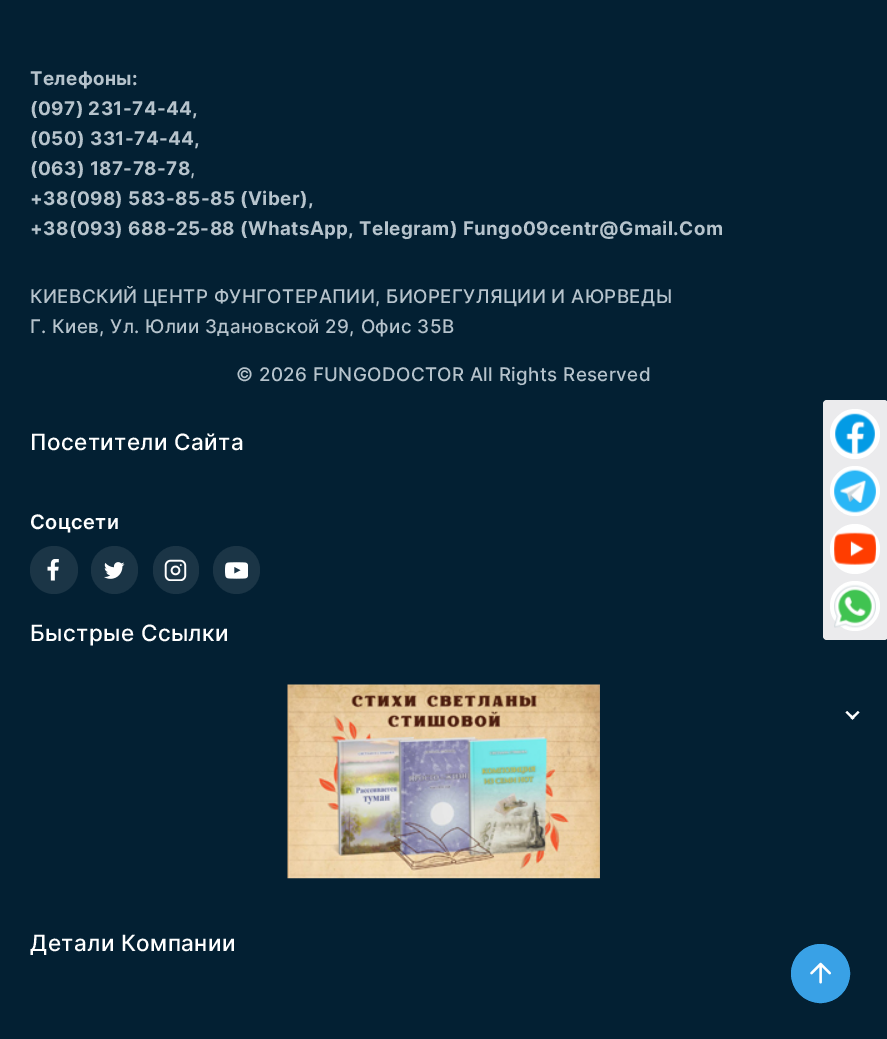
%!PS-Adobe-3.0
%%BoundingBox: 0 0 887 1039
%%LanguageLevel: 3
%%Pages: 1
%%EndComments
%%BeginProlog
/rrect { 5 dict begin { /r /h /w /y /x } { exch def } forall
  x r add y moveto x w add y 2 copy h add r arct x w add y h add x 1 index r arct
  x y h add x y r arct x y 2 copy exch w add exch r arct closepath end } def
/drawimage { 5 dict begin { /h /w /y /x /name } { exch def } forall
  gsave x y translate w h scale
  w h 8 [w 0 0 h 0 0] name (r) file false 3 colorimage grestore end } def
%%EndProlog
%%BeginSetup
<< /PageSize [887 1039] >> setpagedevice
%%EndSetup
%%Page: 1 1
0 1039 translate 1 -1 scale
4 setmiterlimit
0.012 0.125 0.2 setrgbcolor
0 0 887 1039 rectfill
0.106 0.208 0.275 setrgbcolor
newpath 54 570 24 0 360 arc closepath fill
(images/1.raw) 47 559 12 22 drawimage
91 546 47 48 23.5 rrect fill
(images/2.raw) 104 562 21 17 drawimage
153 546 46 48 23 rrect fill
(images/3.raw) 164 559 23 22 drawimage
213 546 47 48 23.5 rrect fill
(images/4.raw) 225 562 23 17 drawimage
(images/5.raw) 287 684 313 195 drawimage
1 setgray
newpath 859.5 712.5 moveto 852.5 719.5 lineto 850.5 718 lineto 858 711 lineto closepath fill
newpath 854.5 718 moveto 852.5 719.5 lineto 845.5 712.5 lineto 847 711 lineto closepath fill
0.922 0.922 0.929 setrgbcolor
823 400 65 240 4 rrect fill
1 setgray
newpath 855 434 25 0 360 arc closepath fill
(images/6.raw) 835 413 40 41 drawimage
newpath 855 491 25 0 360 arc closepath fill
(images/7.raw) 834 469 42 44 drawimage
newpath 855 549 25 0 360 arc closepath fill
(images/8.raw) 834 532 43 33 drawimage
newpath 855 606 25 0 360 arc closepath fill
(images/9.raw) 834 584 42 44 drawimage
0.224 0.631 0.902 setrgbcolor
newpath 820.5 973.5 29 0 360 arc closepath gsave fill grestore
stroke
(images/10.raw) 810 962 21 22 drawimage
/Inter-Bold [18.75 0 0 -18.75 0 0] selectfont
0.714 0.765 0.8 setrgbcolor
30 85 moveto 0.38 0 (Телефоны:) ashow
30 115 moveto 0.38 0 (\(097\) 231-74-44,) ashow
30 145 moveto 0.38 0 (\(050\) 331-74-44,) ashow
30 175 moveto 0.38 0 (\(063\) 187-78-78) ashow
/Inter-Medium [18.75 0 0 -18.75 0 0] selectfont
190 175 moveto 0.38 0 (,) ashow
/Inter-Bold [18.75 0 0 -18.75 0 0] selectfont
30 205 moveto 0.38 0 (+38\(098\) 583-85-85 \(Viber\),) ashow
30 235 moveto 0.38 0 (+38\(093\) 688-25-88 \(WhatsApp, Telegram\)) ashow
463 235 moveto 0.38 0 (Fungo09centr@Gmail.Com) ashow
/Inter-Medium [18.75 0 0 -18.75 0 0] selectfont
30 303 moveto 0.38 0 (КИЕВСКИЙ ЦЕНТР ФУНГОТЕРАПИИ, БИОРЕГУЛЯЦИИ И АЮРВЕДЫ) ashow
30 333 moveto 0.38 0 (Г. Киев, Ул. Юлии Здановской 29, Офис 35В) ashow
236 381 moveto 0.38 0 (© 2026 FUNGODOCTOR All Rights Reserved) ashow
/Inter-Medium [22.5 0 0 -22.5 0 0] selectfont
1 setgray
30 450 moveto 0.38 0 (Посетители Сайта) ashow
/Inter-SemiBold [20 0 0 -20 0 0] selectfont
30 529 moveto 0.38 0 (Соцсети) ashow
/Inter-Medium [22.5 0 0 -22.5 0 0] selectfont
30 641 moveto 0.38 0 (Быстрые Ссылки) ashow
30 951 moveto 0.38 0 (Детали Компании) ashow
showpage
%%EOF
